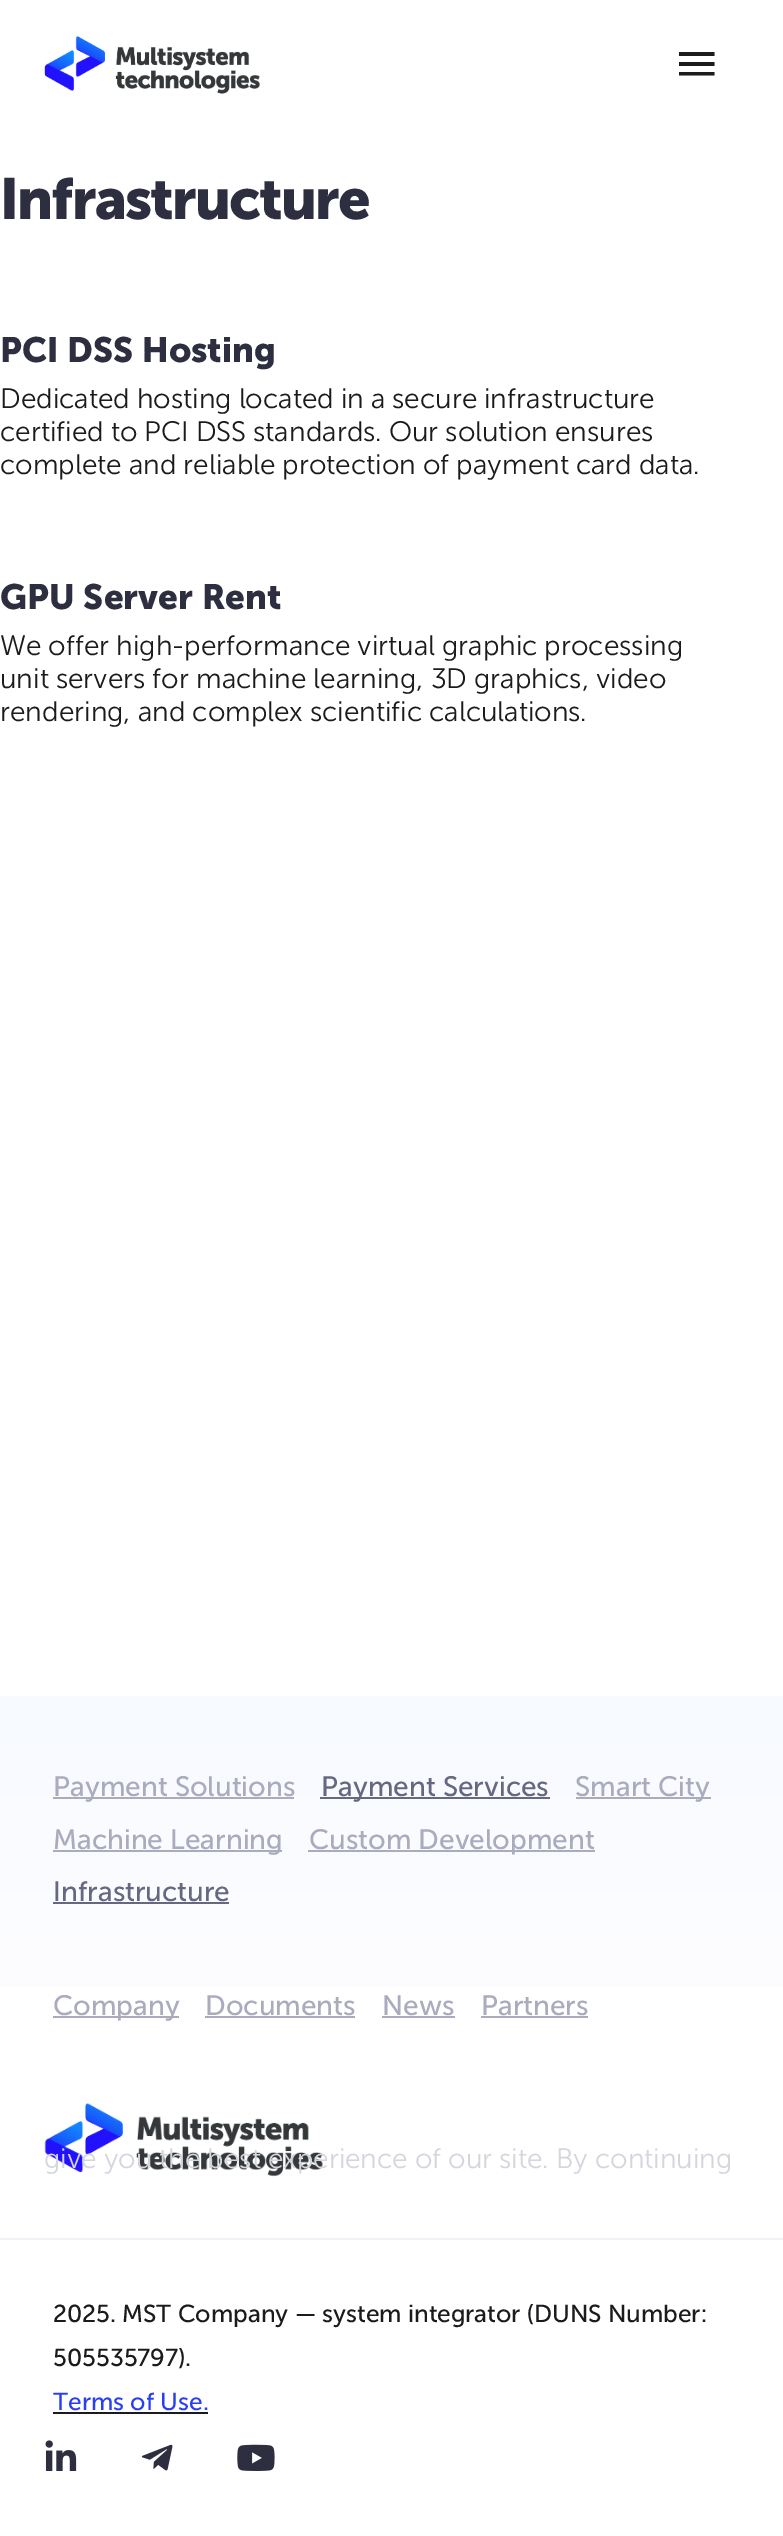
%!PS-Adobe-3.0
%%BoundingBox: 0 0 783 2536
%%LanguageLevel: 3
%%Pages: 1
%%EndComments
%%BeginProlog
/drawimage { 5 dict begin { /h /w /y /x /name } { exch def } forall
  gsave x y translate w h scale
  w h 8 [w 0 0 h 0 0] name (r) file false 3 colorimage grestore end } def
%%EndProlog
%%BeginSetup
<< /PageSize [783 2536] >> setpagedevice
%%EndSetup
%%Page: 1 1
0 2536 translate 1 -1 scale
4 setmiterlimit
1 setgray
0 0 783 2536 rectfill
(images/1.raw) 44 36 216 58 drawimage
0.106 0.106 0.114 setrgbcolor
newpath 679 75.5 moveto 679 72 lineto 714.5 72 lineto 714.5 75.5 lineto closepath 679 66 moveto 679 62 lineto 714.5 62 lineto 714.5 66 lineto closepath 679 52 moveto 714.5 52 lineto 714.5 56 lineto 679 56 lineto closepath fill
gsave newpath 0 1700 moveto 783 1700 lineto 783 1987 lineto 0 1987 lineto closepath clip newpath
<< /ShadingType 2 /ColorSpace /DeviceRGB /Coords [392 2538 392 1699] /Extend [true true] /Function << /FunctionType 3 /Domain [0 1] /Functions [<< /FunctionType 2 /Domain [0 1] /C0 [1 1 1] /C1 [1 1 1] /N 1 >> << /FunctionType 2 /Domain [0 1] /C0 [1 1 1] /C1 [0.969 0.98 1] /N 1 >>] /Bounds [0.5] /Encode [0 1 0 1] >> >> shfill grestore
0.969 0.98 1 setrgbcolor
0 1696 783 4 rectfill
0.937 0.949 0.969 setrgbcolor
0 2238 783 2 rectfill
0.667 0.671 0.741 setrgbcolor
53 1797 241 2 rectfill
0.4 0.408 0.502 setrgbcolor
320 1797 230 2 rectfill
0.667 0.671 0.741 setrgbcolor
576 1797 135 2 rectfill
53 1850 229 2 rectfill
308 1850 287 2 rectfill
0.4 0.408 0.502 setrgbcolor
53 1902 176 2 rectfill
0.667 0.671 0.741 setrgbcolor
53 2016 126 2 rectfill
205 2016 150 2 rectfill
382 2016 73 2 rectfill
481 2016 107 2 rectfill
(images/2.raw) 44 2103 279 74 drawimage
0.106 0.106 0.114 setrgbcolor
53 2412 155 2 rectfill
(images/3.raw) 45 2440 32 31 drawimage
(images/4.raw) 141 2444 32 27 drawimage
(images/5.raw) 237 2444 38 27 drawimage
/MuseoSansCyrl-Bold [57.75 0 0 -57.75 0 0] selectfont
0.176 0.184 0.251 setrgbcolor
0 219 moveto -1.75 0 (Infrastructure) ashow
/MuseoSansCyrl-Bold [35 0 0 -35 0 0] selectfont
0 362 moveto (PCI DSS Hosting) show
/MuseoSansCyrl-Light [28 0 0 -28 0 0] selectfont
0.106 0.106 0.114 setrgbcolor
0 408 moveto (Dedicated hosting located in a secure infrastructure) show
0 441 moveto (certified to PCI DSS standards. Our solution ensures) show
0 474 moveto (complete and reliable protection of payment card data.) show
/MuseoSansCyrl-Bold [35 0 0 -35 0 0] selectfont
0.176 0.184 0.251 setrgbcolor
0 609 moveto (GPU Server Rent) show
/MuseoSansCyrl-Light [28 0 0 -28 0 0] selectfont
0.106 0.106 0.114 setrgbcolor
0 655 moveto (We offer high-performance virtual graphic processing) show
0 688 moveto (unit servers for machine learning, 3D graphics, video) show
0 721 moveto (rendering, and complex scientific calculations.) show
/MuseoSansCyrl-Regular [28 0 0 -28 0 0] selectfont
0.667 0.671 0.741 setrgbcolor
53 1796 moveto (Payment Solutions) show
0.4 0.408 0.502 setrgbcolor
321 1796 moveto (Payment Services) show
0.667 0.671 0.741 setrgbcolor
575 1796 moveto (Smart City) show
53 1849 moveto (Machine Learning) show
309 1849 moveto (Custom Development) show
0.4 0.408 0.502 setrgbcolor
53 1901 moveto (Infrastructure) show
0.667 0.671 0.741 setrgbcolor
53 2015 moveto (Company) show
205 2015 moveto (Documents) show
382 2015 moveto (News) show
481 2015 moveto (Partners) show
/MuseoSansCyrl-Regular [24.5 0 0 -24.5 0 0] selectfont
0.106 0.106 0.114 setrgbcolor
53 2322 moveto (2025. MST Company — system integrator \(DUNS Number:) show
53 2366 moveto (505535797\).) show
0.169 0.247 0.949 setrgbcolor
53 2410 moveto (Terms of Use.) show
/MuseoSansCyrl-Light [28 0 0 -28 0 0] selectfont
0.835 0.835 0.871 setrgbcolor
44 2168 moveto (give you the best experience of our site. By continuing) show
showpage
%%EOF
